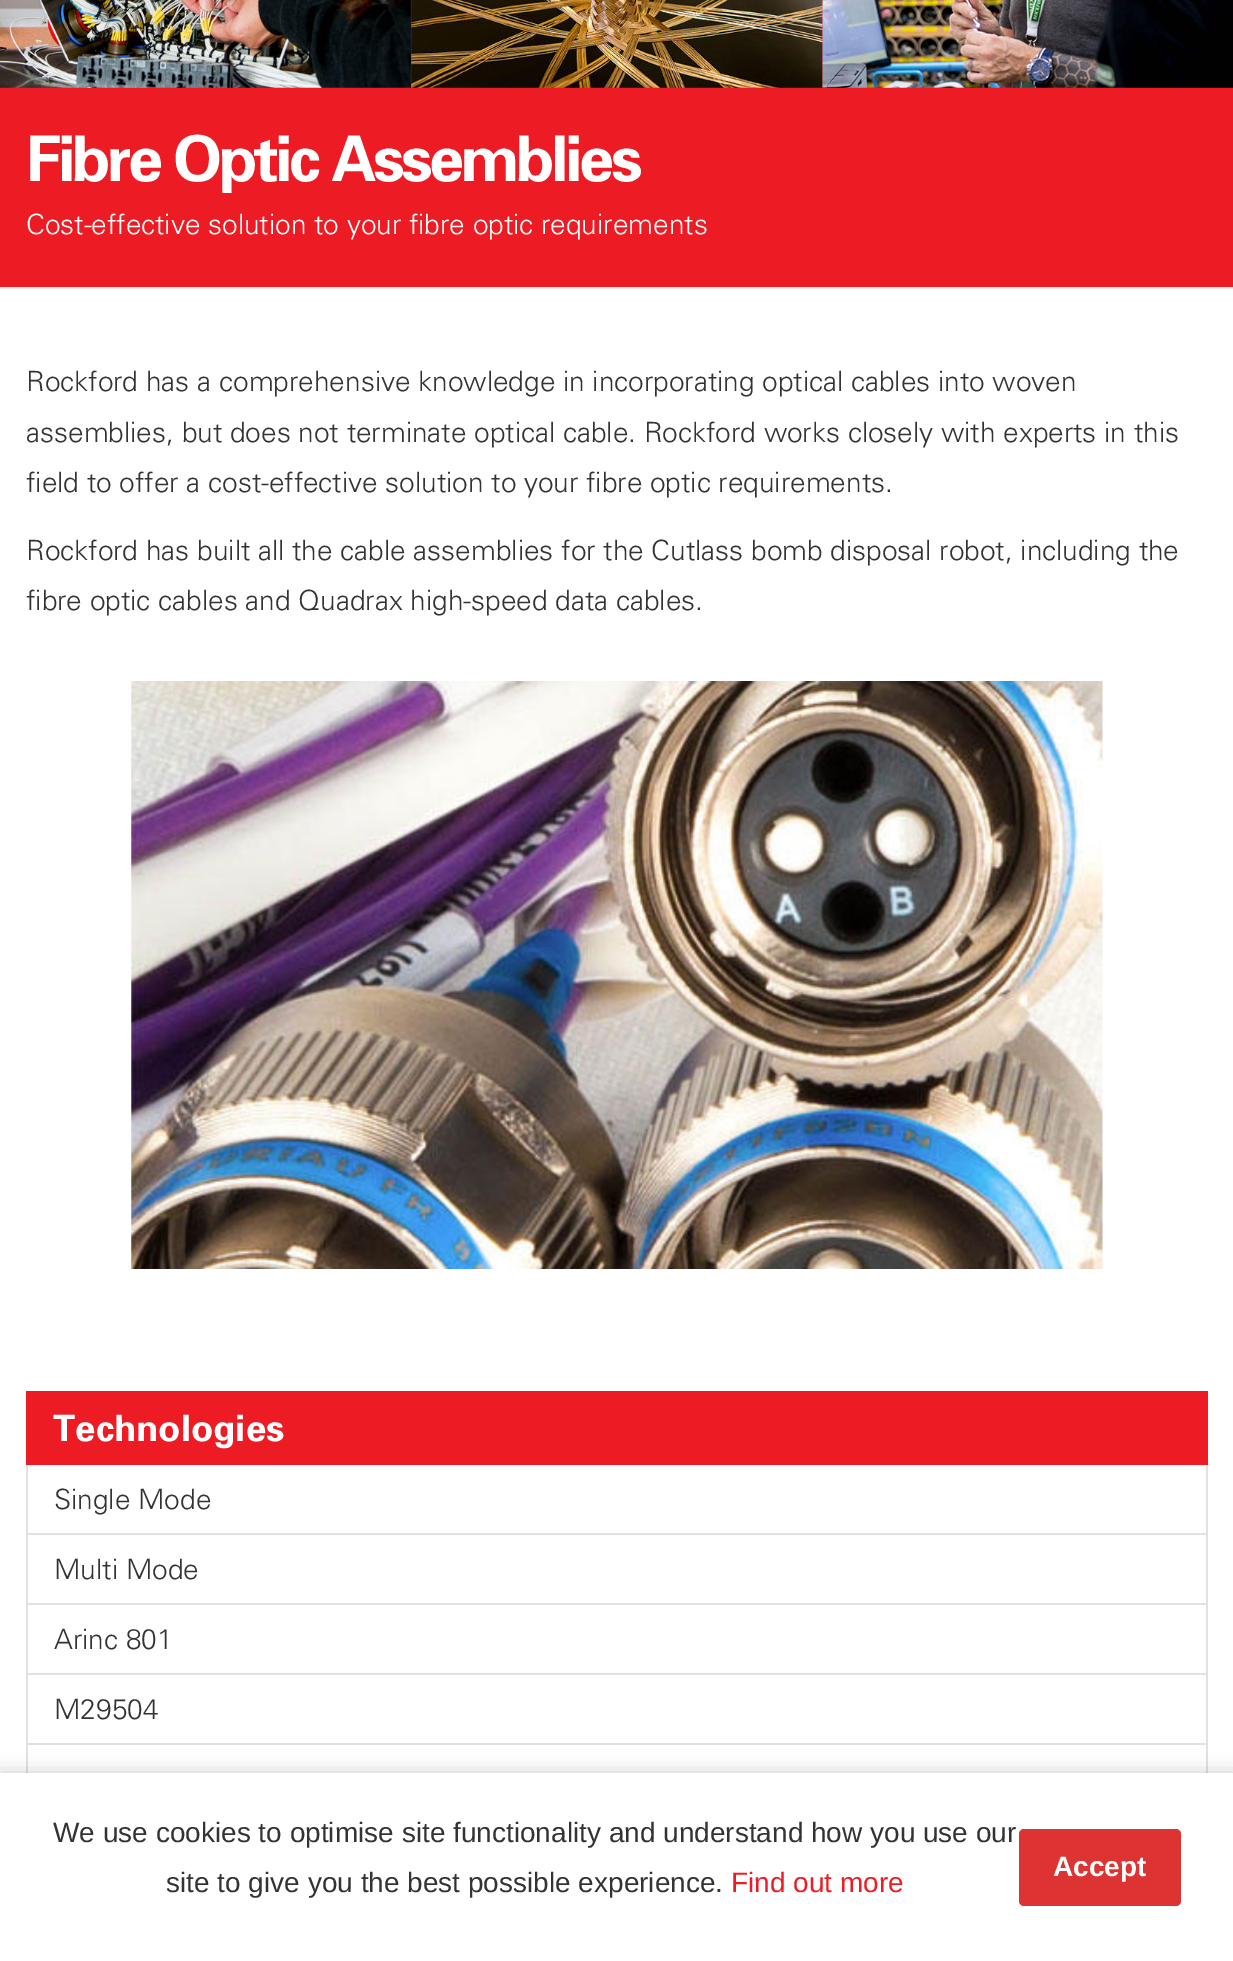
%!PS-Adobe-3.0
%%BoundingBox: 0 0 1233 1961
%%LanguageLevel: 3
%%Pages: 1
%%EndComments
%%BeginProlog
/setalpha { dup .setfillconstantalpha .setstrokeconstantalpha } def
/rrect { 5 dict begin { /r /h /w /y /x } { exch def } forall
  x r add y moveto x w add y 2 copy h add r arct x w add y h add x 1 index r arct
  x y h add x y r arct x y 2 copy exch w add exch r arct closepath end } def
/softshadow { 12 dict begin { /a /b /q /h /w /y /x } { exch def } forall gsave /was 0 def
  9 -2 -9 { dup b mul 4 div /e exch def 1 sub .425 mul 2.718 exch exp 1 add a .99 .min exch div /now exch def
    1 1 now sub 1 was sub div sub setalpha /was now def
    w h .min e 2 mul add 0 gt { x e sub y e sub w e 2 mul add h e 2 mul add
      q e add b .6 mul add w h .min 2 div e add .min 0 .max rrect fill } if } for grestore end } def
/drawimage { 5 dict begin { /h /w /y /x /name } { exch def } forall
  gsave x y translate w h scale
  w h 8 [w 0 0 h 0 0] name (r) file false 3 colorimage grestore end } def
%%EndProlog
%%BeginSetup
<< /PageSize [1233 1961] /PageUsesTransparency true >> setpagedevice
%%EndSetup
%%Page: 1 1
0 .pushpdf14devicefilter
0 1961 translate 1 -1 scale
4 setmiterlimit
1 setgray
0 0 1233 1961 rectfill
0.929 0.11 0.141 setrgbcolor
0 0 1233 287 rectfill
0.933 setgray
0 287 1233 2 rectfill
(images/1.raw) 0 0 412 88 drawimage
(images/2.raw) 411 0 412 88 drawimage
(images/3.raw) 822 0 411 88 drawimage
(images/4.raw) 131 681 972 588 drawimage
0.929 0.11 0.141 setrgbcolor
26 1391 1182 74 rectfill
0.882 setgray
1206 1465 2 308 rectfill
26 1533 1182 2 rectfill
26 1465 2 70 rectfill
26 1603 1182 2 rectfill
26 1535 2 70 rectfill
26 1673 1182 2 rectfill
26 1605 2 70 rectfill
26 1743 1182 2 rectfill
26 1675 2 98 rectfill
0 setgray
0 1773 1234 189 0 9 0.2 softshadow
1 setgray
0 1773 1233 188 rectfill
0.867 0.2 0.2 setrgbcolor
1019 1829 162 77 5 rrect fill
/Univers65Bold-Bold [63 0 0 -63 0 0] selectfont
1 setgray
26 181 moveto -3.5 0 (Fibre Optic Assemblies) ashow
/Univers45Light-Light [28 0 0 -28 0 0] selectfont
26 234 moveto (Cost-effective solution to your fibre optic requirements) show
0.2 setgray
26 391 moveto (Rockford has a comprehensive knowledge in incorporating optical cables into woven) show
26 442 moveto (assemblies, but does not terminate optical cable. Rockford works closely with experts in this) show
26 492 moveto (field to offer a cost-effective solution to your fibre optic requirements.) show
26 560 moveto (Rockford has built all the cable assemblies for the Cutlass bomb disposal robot, including the) show
26 610 moveto (fibre optic cables and Quadrax high-speed data cables.) show
/Univers65Bold-Bold [36.5 0 0 -36.5 0 0] selectfont
1 setgray
53 1441 moveto (Technologies) show
/Univers45Light-Light [28 0 0 -28 0 0] selectfont
0.2 setgray
54 1509 moveto (Single Mode) show
54 1579 moveto (Multi Mode) show
54 1649 moveto (Arinc 801) show
54 1719 moveto (M29504) show
/LiberationSans-Regular [28 0 0 -28 0 0] selectfont
53 1842 moveto (We use cookies to optimise site functionality and understand how you use our) show
166 1892 moveto (site to give you the best possible experience.) show
0.929 0.11 0.141 setrgbcolor
731 1892 moveto (Find out more) show
/LiberationSans-Bold [28 0 0 -28 0 0] selectfont
1 setgray
1053 1876 moveto (Accept) show
.poppdf14devicefilter showpage
%%EOF
